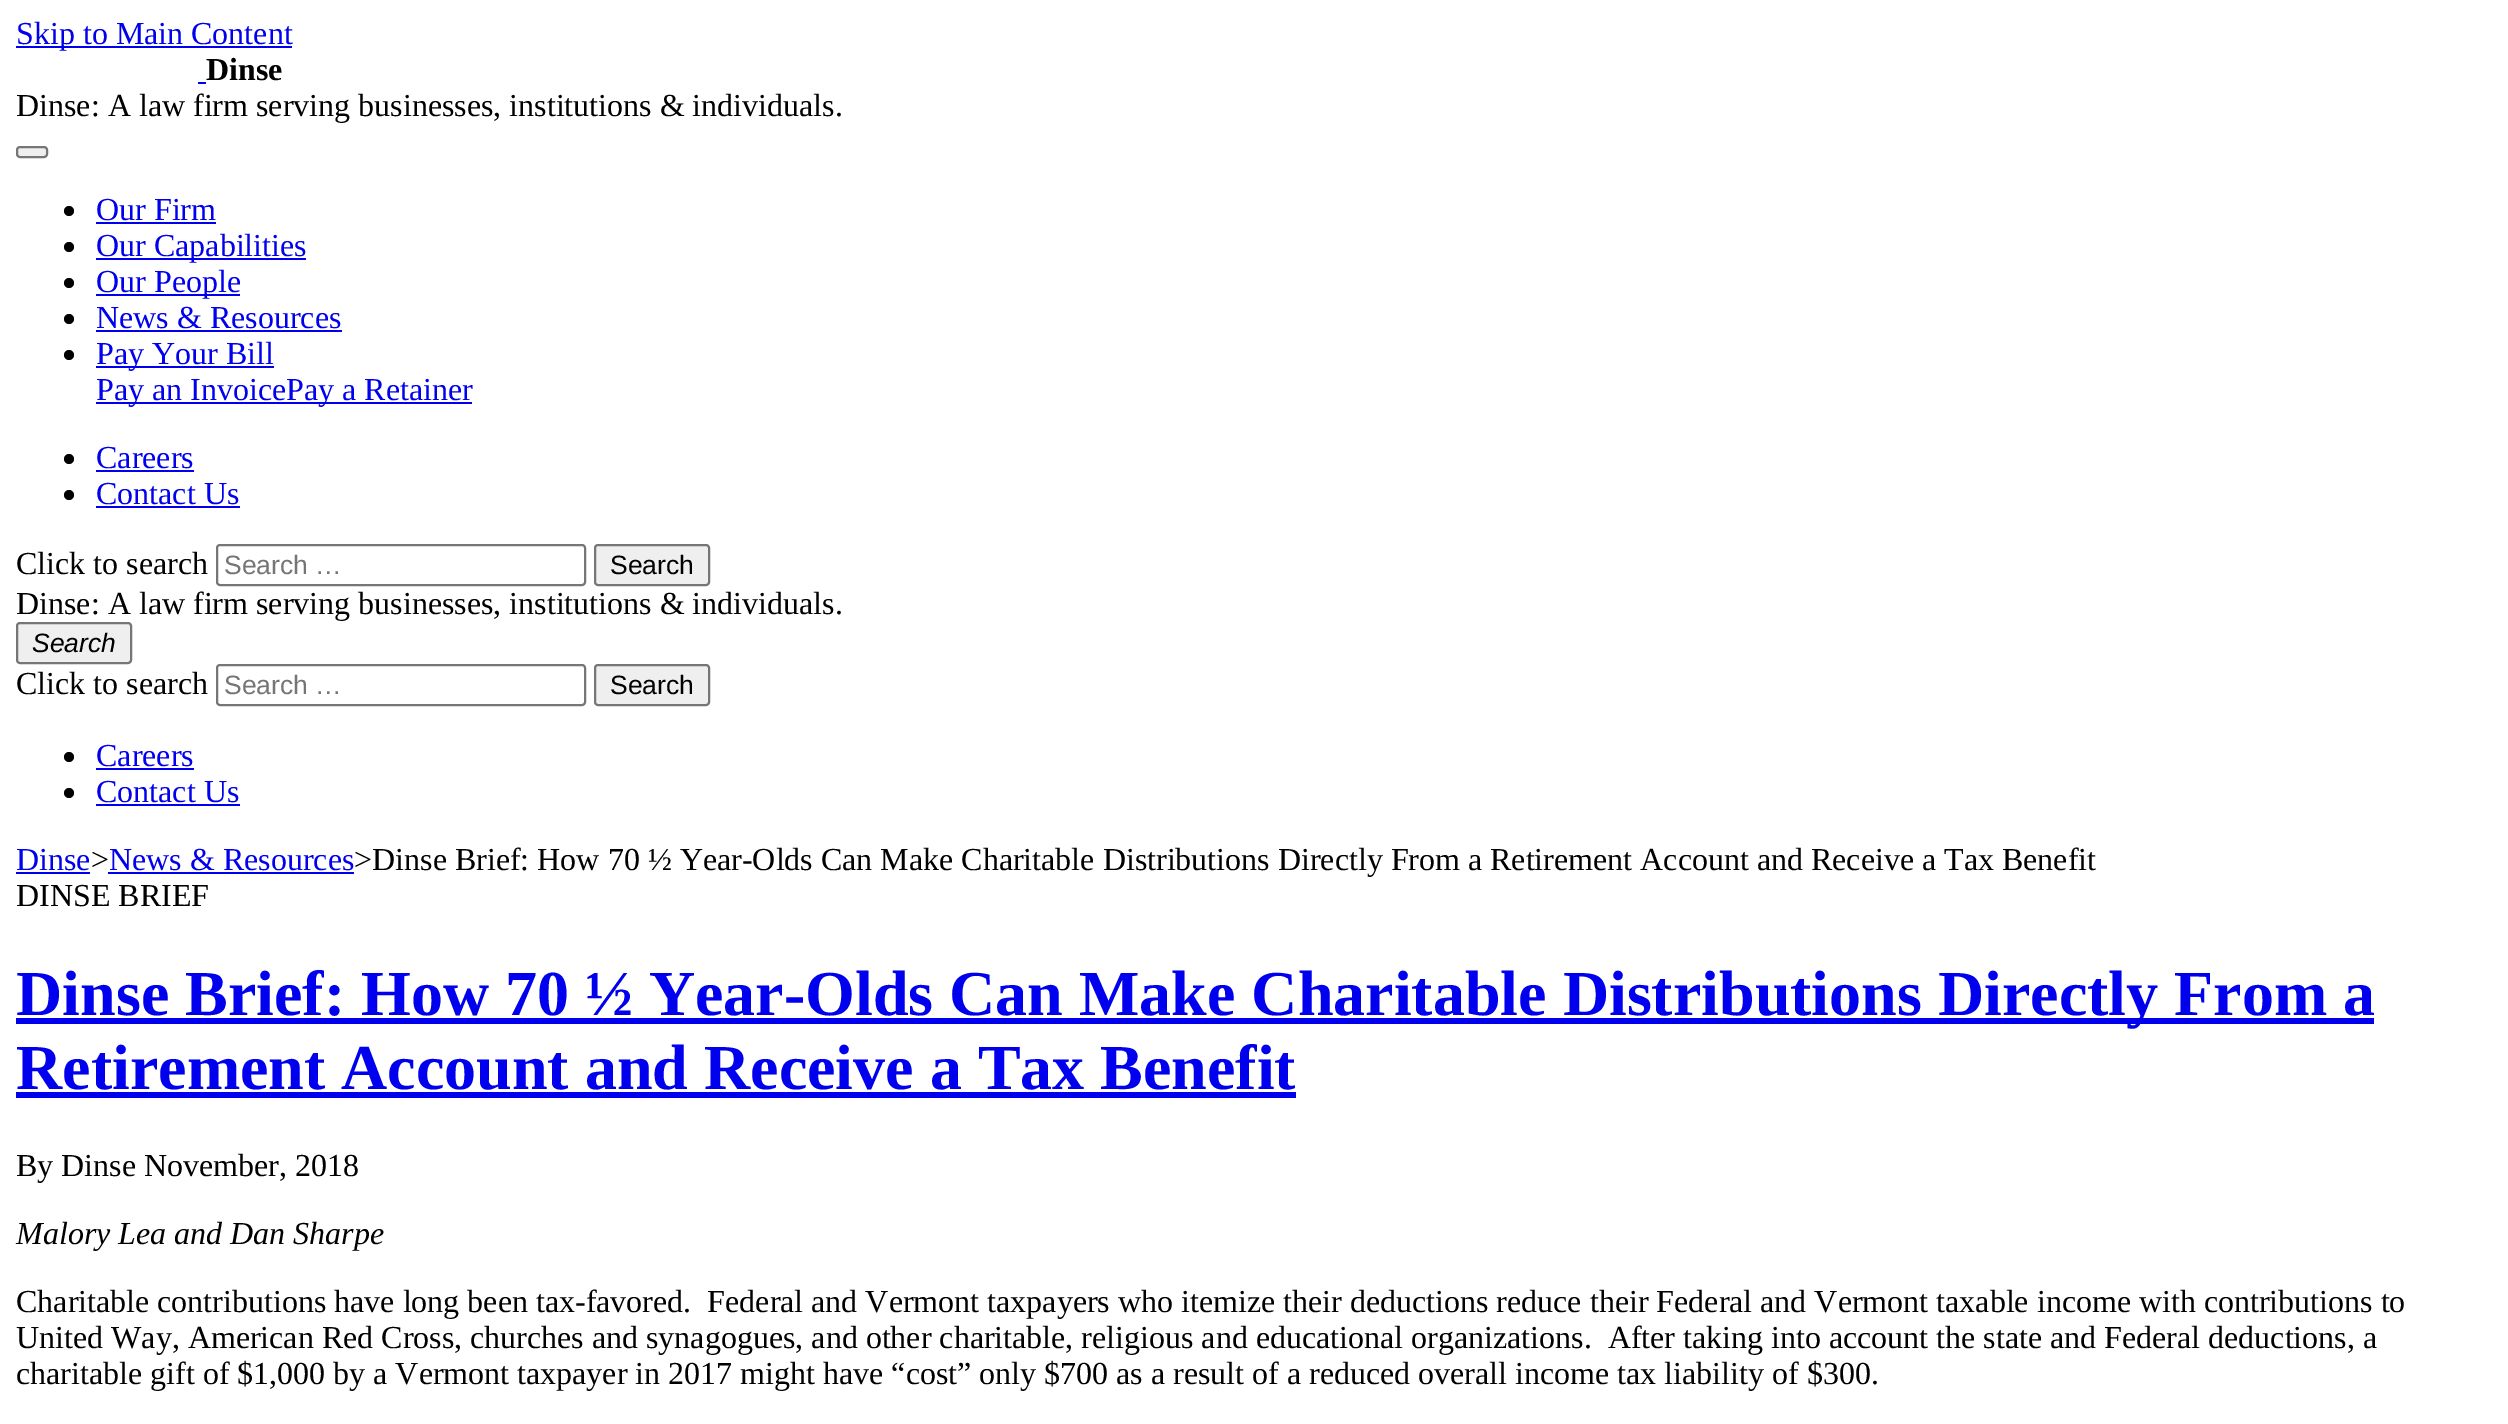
%!PS-Adobe-3.0
%%BoundingBox: 0 0 2508 1424
%%LanguageLevel: 3
%%Pages: 1
%%EndComments
%%BeginProlog
/rrect { 5 dict begin { /r /h /w /y /x } { exch def } forall
  x r add y moveto x w add y 2 copy h add r arct x w add y h add x 1 index r arct
  x y h add x y r arct x y 2 copy exch w add exch r arct closepath end } def
%%EndProlog
%%BeginSetup
<< /PageSize [2508 1424] >> setpagedevice
%%EndSetup
%%Page: 1 1
0 1424 translate 1 -1 scale
4 setmiterlimit
1 setgray
0 0 2508 1424 rectfill
0 0 0.933 setrgbcolor
16 46 276 2 rectfill
198 82 8 2 rectfill
0.937 setgray
17 147 30 10 3 rrect gsave fill grestore
0.463 setgray
2 setlinewidth
stroke
0 setgray
newpath 69 211 5 0 360 arc closepath fill
0 0 0.933 setrgbcolor
96 222 120 2 rectfill
0 setgray
newpath 69 247 5 0 360 arc closepath fill
0 0 0.933 setrgbcolor
96 258 210 2 rectfill
0 setgray
newpath 69 283 5 0 360 arc closepath fill
0 0 0.933 setrgbcolor
96 294 144 2 rectfill
0 setgray
newpath 69 319 5 0 360 arc closepath fill
0 0 0.933 setrgbcolor
96 330 246 2 rectfill
0 setgray
newpath 69 355 5 0 360 arc closepath fill
0 0 0.933 setrgbcolor
96 366 178 2 rectfill
96 402 376 2 rectfill
0 setgray
newpath 69 459 5 0 360 arc closepath fill
0 0 0.933 setrgbcolor
96 470 98 2 rectfill
0 setgray
newpath 69 495 5 0 360 arc closepath fill
0 0 0.933 setrgbcolor
96 506 144 2 rectfill
0.463 setgray
217 545 368 40 3 rrect stroke
0.937 setgray
595 545 114 40 3 rrect gsave fill grestore
0.463 setgray
stroke
0.937 setgray
17 623 114 40 3 rrect gsave fill grestore
0.463 setgray
stroke
217 665 368 40 3 rrect stroke
0.937 setgray
595 665 114 40 3 rrect gsave fill grestore
0.463 setgray
stroke
0 setgray
newpath 69 757 5 0 360 arc closepath fill
0 0 0.933 setrgbcolor
96 768 98 2 rectfill
0 setgray
newpath 69 793 5 0 360 arc closepath fill
0 0 0.933 setrgbcolor
96 804 144 2 rectfill
16 872 74 2 rectfill
108 872 246 2 rectfill
16 1018 2358 6 rectfill
16 1092 1280 6 rectfill
/LiberationSerif-Regular [32 0 0 -32 0 0] selectfont
16 44 moveto (Skip to Main Content) show
/LiberationSerif-Bold [32 0 0 -32 0 0] selectfont
0 setgray
206 80 moveto (Dinse) show
/LiberationSerif-Regular [32 0 0 -32 0 0] selectfont
16 116 moveto (Dinse: A law firm serving businesses, institutions & individuals.) show
0 0 0.933 setrgbcolor
96 220 moveto (Our Firm) show
96 256 moveto (Our Capabilities) show
96 292 moveto (Our People) show
96 328 moveto (News & Resources) show
96 364 moveto (Pay Your Bill) show
96 400 moveto (Pay an InvoicePay a Retainer) show
96 468 moveto (Careers) show
96 504 moveto (Contact Us) show
0 setgray
16 574 moveto (Click to search) show
/LiberationSans-Regular [26.5 0 0 -26.5 0 0] selectfont
0.459 setgray
224 574 moveto (Search …) show
0 setgray
610 574 moveto (Search) show
/LiberationSerif-Regular [32 0 0 -32 0 0] selectfont
16 614 moveto (Dinse: A law firm serving businesses, institutions & individuals.) show
/LiberationSans-Italic [26.5 0 0 -26.5 0 0] selectfont
32 652 moveto (Search) show
/LiberationSerif-Regular [32 0 0 -32 0 0] selectfont
16 694 moveto (Click to search) show
/LiberationSans-Regular [26.5 0 0 -26.5 0 0] selectfont
0.459 setgray
224 694 moveto (Search …) show
0 setgray
610 694 moveto (Search) show
/LiberationSerif-Regular [32 0 0 -32 0 0] selectfont
0 0 0.933 setrgbcolor
96 766 moveto (Careers) show
96 802 moveto (Contact Us) show
16 870 moveto (Dinse) show
0 setgray
91 870 moveto (>) show
0 0 0.933 setrgbcolor
109 870 moveto (News & Resources) show
0 setgray
354 870 moveto (>Dinse Brief: How 70 ½ Year-Olds Can Make Charitable Distributions Directly From a Retirement Account and Receive a Tax Benefit) show
16 906 moveto (DINSE BRIEF) show
/LiberationSerif-Bold [64 0 0 -64 0 0] selectfont
0 0 0.933 setrgbcolor
16 1015 moveto (Dinse Brief: How 70 ½ Year-Olds Can Make Charitable Distributions Directly From a) show
16 1089 moveto (Retirement Account and Receive a Tax Benefit) show
/LiberationSerif-Regular [32 0 0 -32 0 0] selectfont
0 setgray
16 1176 moveto (By Dinse November, 2018) show
/LiberationSerif-Italic [32 0 0 -32 0 0] selectfont
16 1244 moveto (Malory Lea and Dan Sharpe) show
/LiberationSerif-Regular [32 0 0 -32 0 0] selectfont
16 1312 moveto (Charitable contributions have long been tax-favored.  Federal and Vermont taxpayers who itemize their deductions reduce their Federal and Vermont taxable income with contributions to) show
16 1348 moveto (United Way, American Red Cross, churches and synagogues, and other charitable, religious and educational organizations.  After taking into account the state and Federal deductions, a) show
16 1384 moveto (charitable gift of $1,000 by a Vermont taxpayer in 2017 might have “cost” only $700 as a result of a reduced overall income tax liability of $300.) show
showpage
%%EOF
